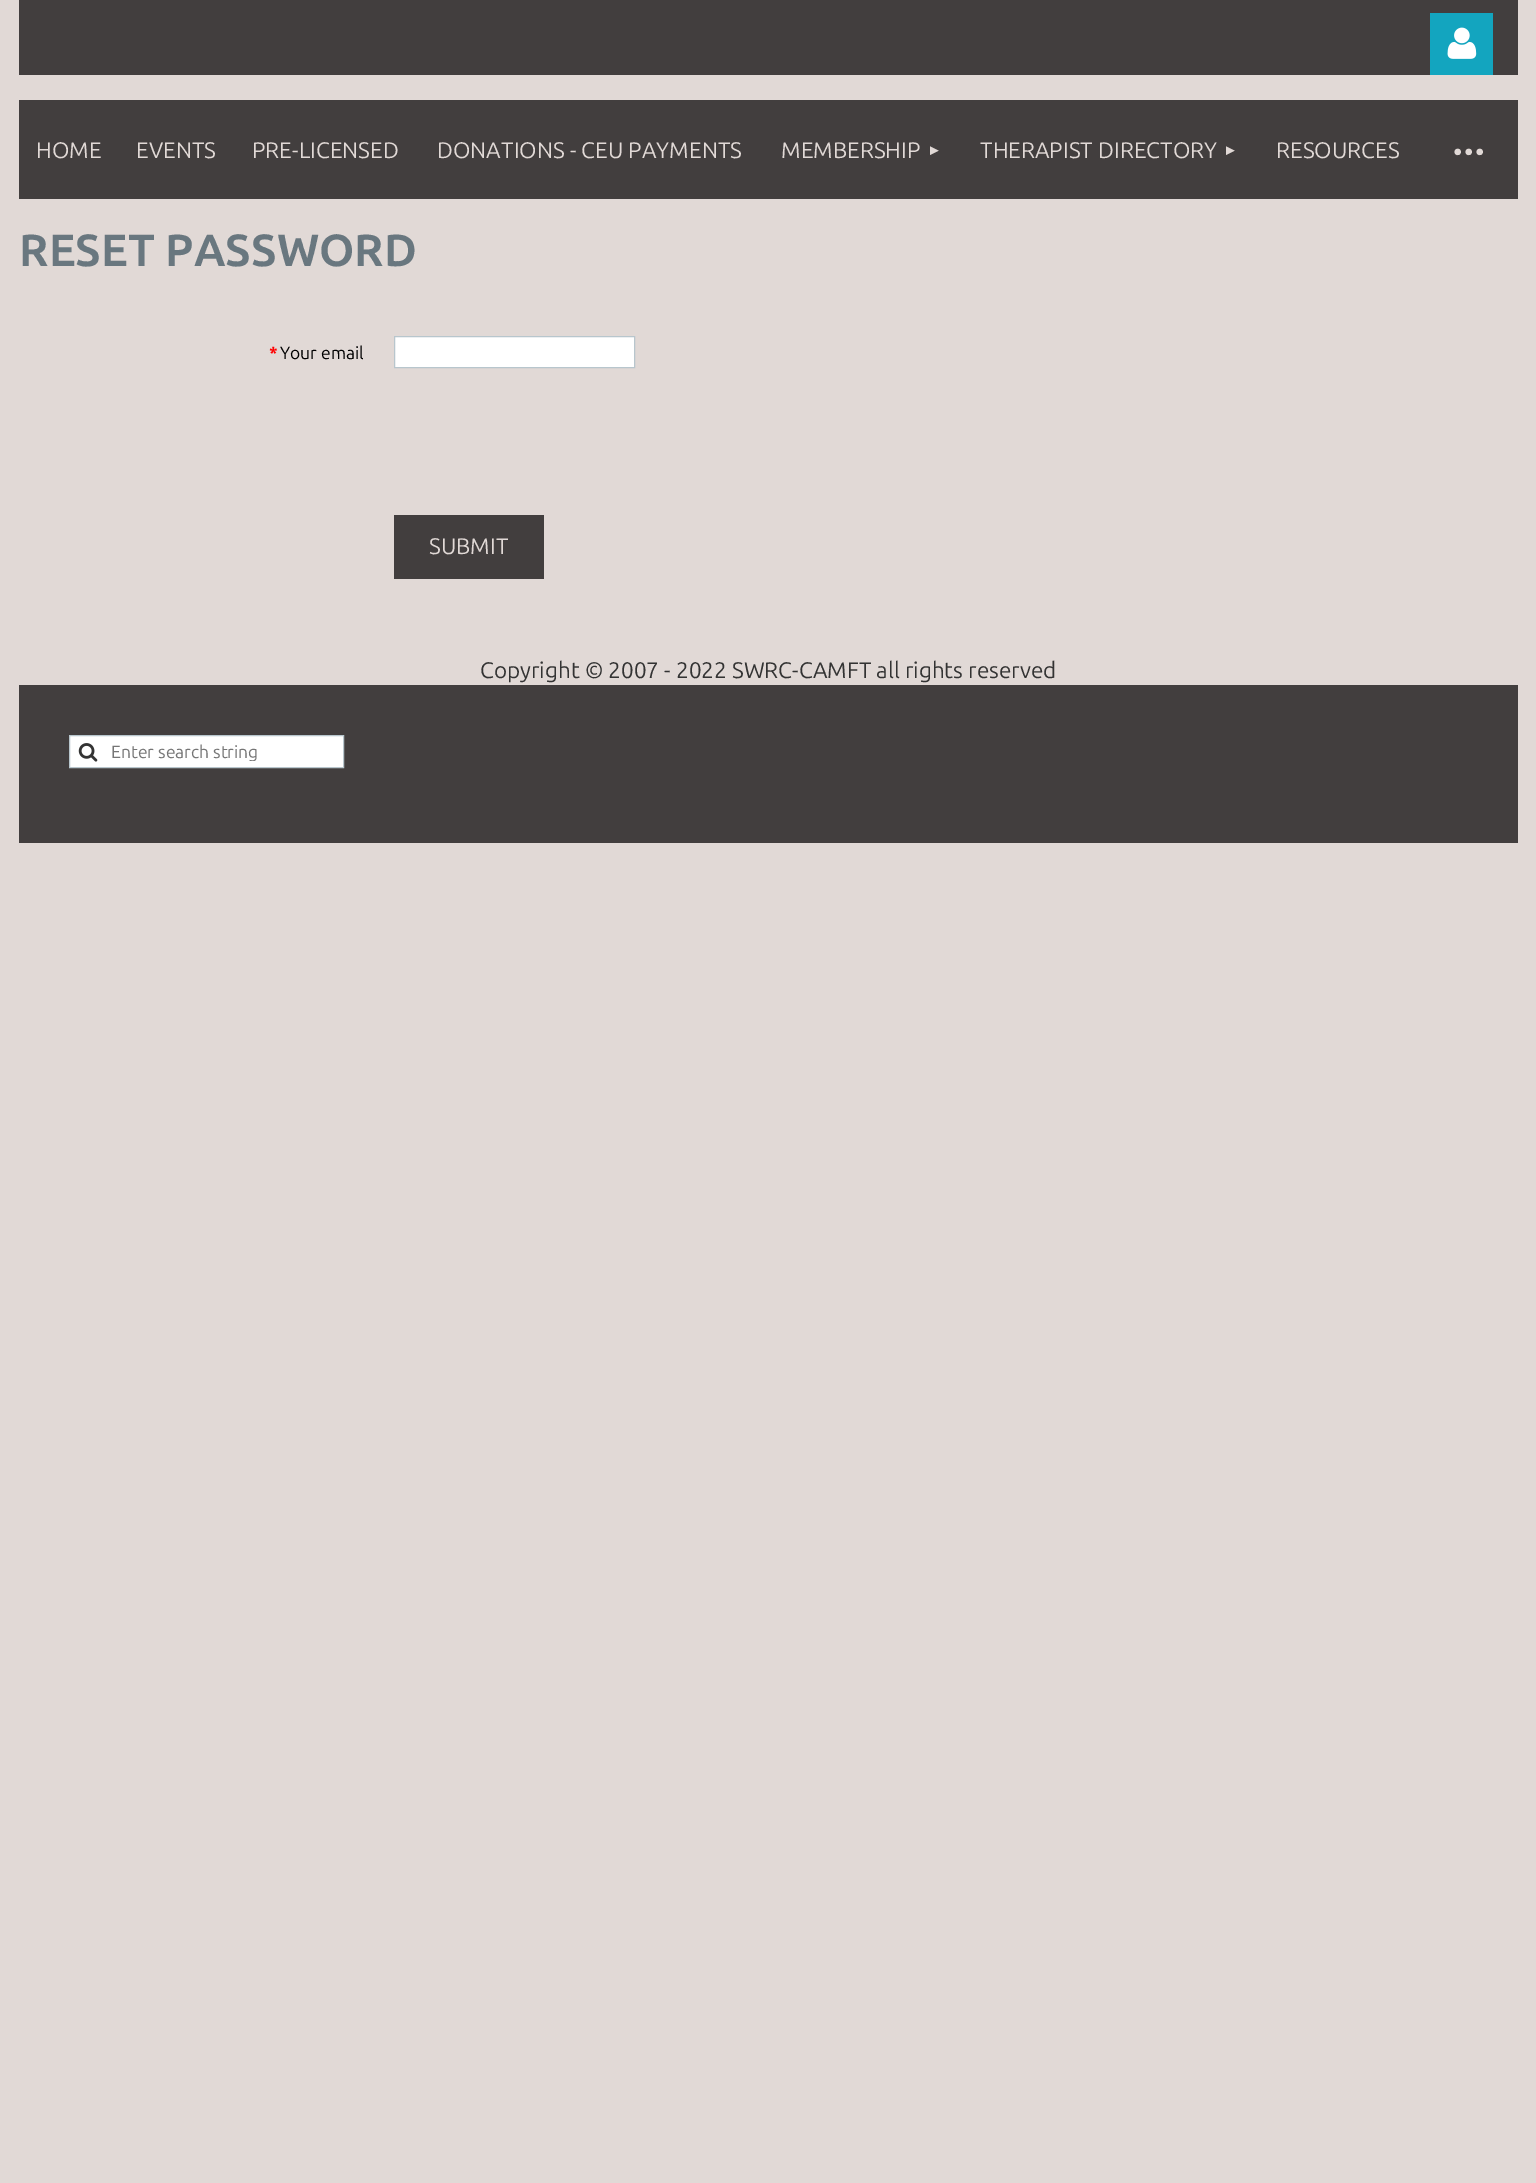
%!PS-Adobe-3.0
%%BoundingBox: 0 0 1536 2183
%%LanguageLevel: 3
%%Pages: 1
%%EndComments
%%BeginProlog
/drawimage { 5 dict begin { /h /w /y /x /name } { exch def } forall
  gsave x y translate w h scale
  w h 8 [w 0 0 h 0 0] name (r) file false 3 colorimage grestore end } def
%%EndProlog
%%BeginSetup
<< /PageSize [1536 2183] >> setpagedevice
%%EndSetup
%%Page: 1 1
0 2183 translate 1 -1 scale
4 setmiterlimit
0.882 0.851 0.839 setrgbcolor
0 0 1536 2183 rectfill
0.259 0.243 0.243 setrgbcolor
19 0 1499 75 rectfill
0.075 0.647 0.749 setrgbcolor
1430 13 63 62 rectfill
(images/1.raw) 1447 27 30 32 drawimage
0.259 0.243 0.243 setrgbcolor
19 100 1499 99 rectfill
1 setgray
newpath 394.5 336.5 moveto 634.5 336.5 lineto 634.5 367.5 lineto 394.5 367.5 lineto closepath gsave fill grestore
0.722 0.776 0.804 setrgbcolor
stroke
0.259 0.243 0.243 setrgbcolor
394 515 150 64 rectfill
19 685 1499 158 rectfill
1 setgray
newpath 69.5 735.5 moveto 343.5 735.5 lineto 343.5 767.5 lineto 69.5 767.5 lineto closepath gsave fill grestore
0.722 0.776 0.804 setrgbcolor
stroke
(images/2.raw) 78 743 20 19 drawimage
/Ubuntu-Regular [22.5 0 0 -22.5 0 0] selectfont
0.882 0.851 0.839 setrgbcolor
36 158 moveto (HOME) show
136 158 moveto (EVENTS) show
252 158 moveto (PRE-LICENSED) show
437 158 moveto (DONATIONS - CEU PAYMENTS) show
781 158 moveto (MEMBERSHIP) show
/LiberationSans-Regular [15 0 0 -15 0 0] selectfont
927 155 moveto (►) show
/Ubuntu-Regular [22.5 0 0 -22.5 0 0] selectfont
980 158 moveto (THERAPIST DIRECTORY) show
/LiberationSans-Regular [15 0 0 -15 0 0] selectfont
1223 155 moveto (►) show
/Ubuntu-Regular [22.5 0 0 -22.5 0 0] selectfont
1276 158 moveto (RESOURCES) show
/Ubuntu-Regular [55 0 0 -55 0 0] selectfont
1451 168 moveto -2.5 0 (···) ashow
/Ubuntu-Bold [45 0 0 -45 0 0] selectfont
0.412 0.467 0.498 setrgbcolor
19 266 moveto (RESET PASSWORD) show
/Ubuntu-Bold [17.5 0 0 -17.5 0 0] selectfont
1 0 0 setrgbcolor
269 359 moveto (*) show
/Ubuntu-Regular [17.5 0 0 -17.5 0 0] selectfont
0 setgray
280 359 moveto (Your email) show
/Ubuntu-Regular [22.5 0 0 -22.5 0 0] selectfont
0.882 0.851 0.839 setrgbcolor
429 554 moveto (SUBMIT) show
0.2 setgray
480 678 moveto (Copyright © 2007 - 2022 SWRC-CAMFT all rights reserved) show
gsave
111 741 225 20 rectclip
/Ubuntu-Regular [17.5 0 0 -17.5 0 0] selectfont
0.459 setgray
111 758 moveto (Enter search string) show
grestore
showpage
%%EOF
